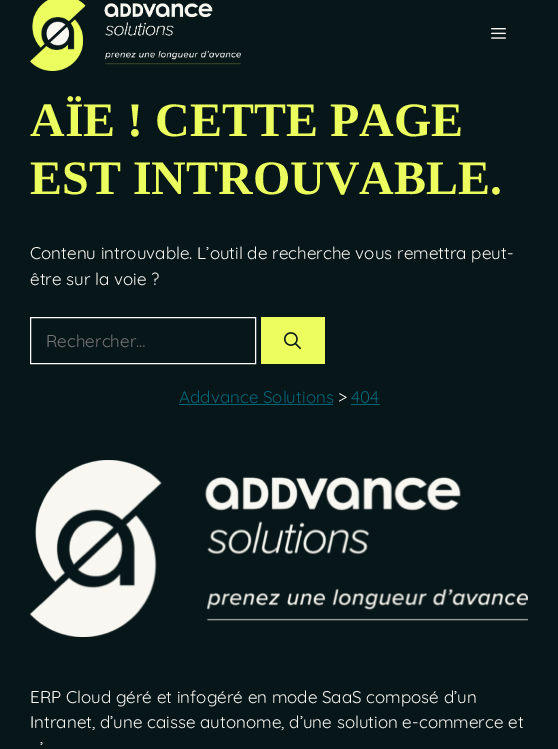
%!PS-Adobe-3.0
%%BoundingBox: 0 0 558 749
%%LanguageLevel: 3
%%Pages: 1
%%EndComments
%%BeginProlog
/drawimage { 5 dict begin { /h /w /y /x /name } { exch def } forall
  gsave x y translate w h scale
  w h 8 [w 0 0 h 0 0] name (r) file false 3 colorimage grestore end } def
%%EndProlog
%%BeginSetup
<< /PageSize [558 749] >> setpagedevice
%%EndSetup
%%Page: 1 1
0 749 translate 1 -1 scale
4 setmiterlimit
0.027 0.086 0.098 setrgbcolor
0 0 558 749 rectfill
(images/1.raw) 30 0 211 71 drawimage
(images/2.raw) 491 28 15 11 drawimage
1 setgray
30.5 317.5 225 46 rectstroke
0.925 0.996 0.365 setrgbcolor
261 317 64 47 rectfill
(images/3.raw) 284 332 17 18 drawimage
0 0.396 0.467 setrgbcolor
179 404 154 1 rectfill
351 404 29 1 rectfill
(images/4.raw) 30 460 498 177 drawimage
/LiberationSerif-Bold [48 0 0 -48 0 0] selectfont
0.925 0.996 0.365 setrgbcolor
30 136 moveto (AÏE ! CETTE PAGE) show
30 194 moveto (EST INTROUVABLE.) show
/Quicksand-Light [17 0 0 -17 0 0] selectfont
0.973 0.969 0.945 setrgbcolor
30 259 moveto (Contenu introuvable. L’outil de recherche vous remettra peut-) show
30 285 moveto (être sur la voie ?) show
0.459 setgray
46 347 moveto (Rechercher…) show
0 0.396 0.467 setrgbcolor
179 403 moveto (Addvance Solutions) show
0.973 0.969 0.945 setrgbcolor
338 403 moveto (>) show
0 0.396 0.467 setrgbcolor
351 403 moveto (404) show
0.973 0.969 0.945 setrgbcolor
30 703 moveto (ERP Cloud géré et infogéré en mode SaaS composé d’un) show
30 728 moveto (Intranet, d’une caisse autonome, d’une solution e-commerce et) show
40 754 moveto (’) show
showpage
%%EOF
